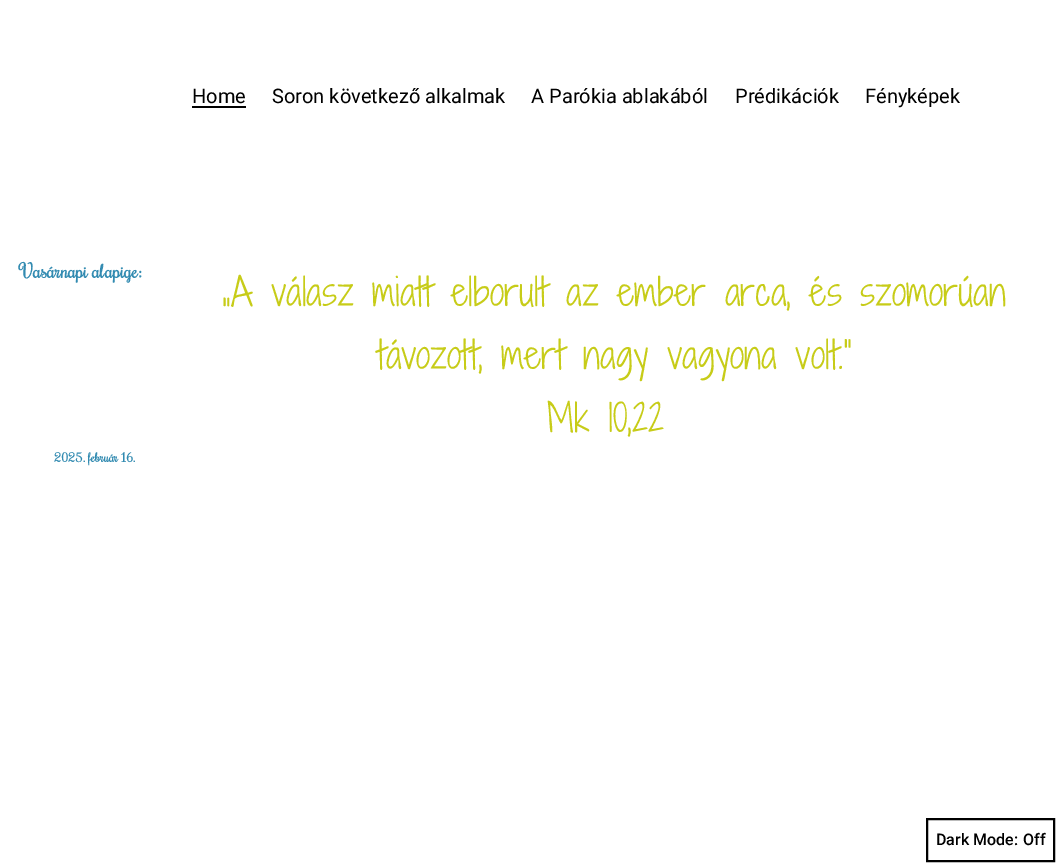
%!PS-Adobe-3.0
%%BoundingBox: 0 0 1060 867
%%LanguageLevel: 3
%%Pages: 1
%%EndComments
%%BeginProlog
%%EndProlog
%%BeginSetup
<< /PageSize [1060 867] >> setpagedevice
%%EndSetup
%%Page: 1 1
0 867 translate 1 -1 scale
4 setmiterlimit
1 setgray
0 0 1060 867 rectfill
0 setgray
192 106 54 2 rectfill
2 setlinewidth
927 819 127 42 rectstroke
/Roboto-Regular [20 0 0 -20 0 0] selectfont
192 103 moveto (Home) show
272 103 moveto (Soron következő alkalmak) show
531 103 moveto (A Parókia ablakából) show
735 103 moveto (Prédikációk) show
865 103 moveto (Fényképek) show
/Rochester-Bold [19 0 0 -19 0 0] selectfont
0.196 0.545 0.694 setrgbcolor
20 278 moveto (Vasárnapi alapige:) show
/Rochester-Bold [13 0 0 -13 0 0] selectfont
54 462 moveto (2025. február 16.) show
/ShadowsIntoLightTwo-Light [37 0 0 -37 0 0] selectfont
0.78 0.8 0.094 setrgbcolor
222 306 moveto („A válasz miatt elborult az ember arca, és szomorúan) show
377 369 moveto (távozott, mert nagy vagyona volt.”) show
547 432 moveto (Mk 10,22) show
/Roboto-Medium [16 0 0 -16 0 0] selectfont
0 setgray
936 845 moveto (Dark Mode:) show
1023 845 moveto (Off) show
showpage
%%EOF
